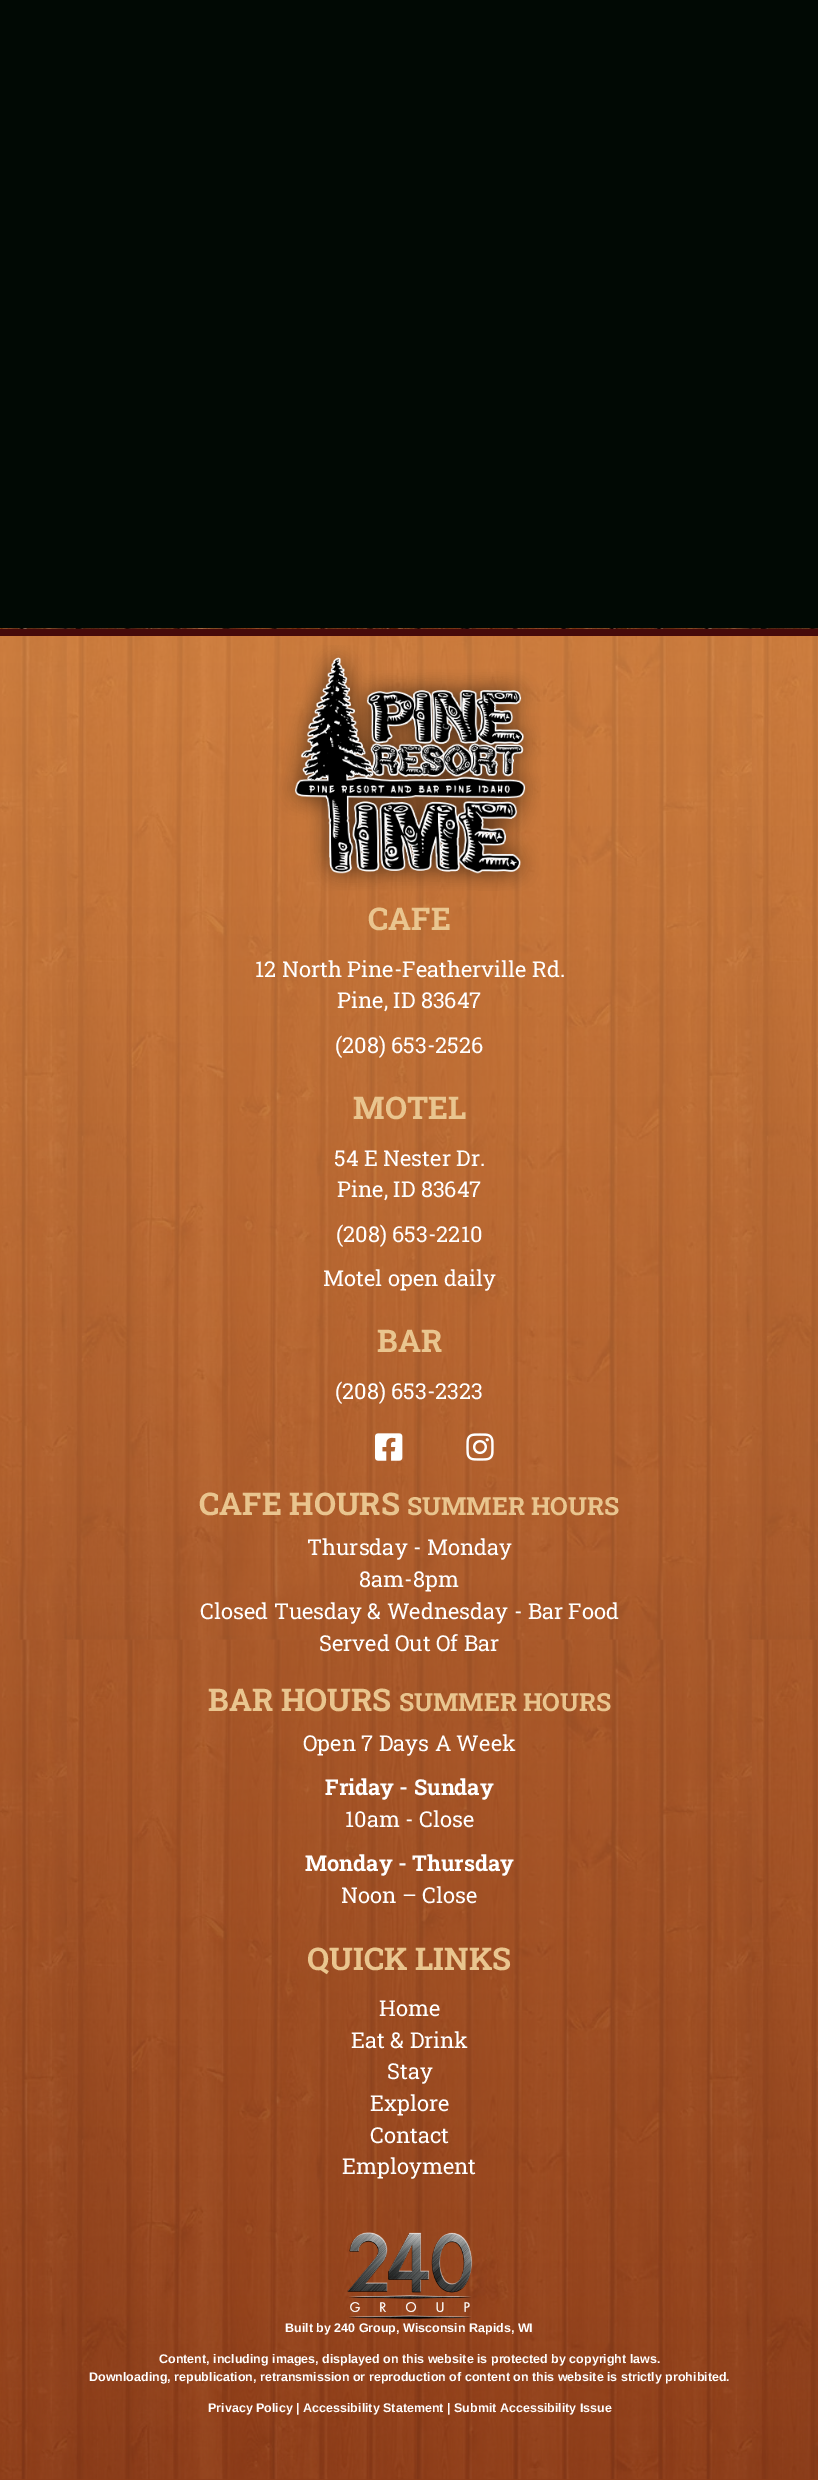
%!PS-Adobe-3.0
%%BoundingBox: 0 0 818 2480
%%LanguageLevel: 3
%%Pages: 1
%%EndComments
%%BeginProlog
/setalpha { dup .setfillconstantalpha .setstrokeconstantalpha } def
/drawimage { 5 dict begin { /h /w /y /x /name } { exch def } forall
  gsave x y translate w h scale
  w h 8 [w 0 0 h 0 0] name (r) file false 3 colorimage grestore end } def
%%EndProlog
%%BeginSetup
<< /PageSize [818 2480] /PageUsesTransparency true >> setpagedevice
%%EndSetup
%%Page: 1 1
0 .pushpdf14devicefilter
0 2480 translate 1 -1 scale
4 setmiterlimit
0.004 0.035 0.016 setrgbcolor
0 0 818 2480 rectfill
0.545 0.235 0.098 setrgbcolor
0 2479 818 1 rectfill
(images/1.raw) 0 628 818 1852 drawimage
0.275 0.039 0.039 setrgbcolor
0 629 818 7 rectfill
0.9 setalpha
gsave newpath 0 636 moveto 818 636 lineto 818 2480 lineto 0 2480 lineto closepath clip newpath
<< /ShadingType 2 /ColorSpace /DeviceRGB /Coords [409 636 409 2480] /Extend [true true] /Function << /FunctionType 2 /Domain [0 1] /C0 [0.816 0.506 0.255] /C1 [0.545 0.235 0.098] /N 1 >> >> shfill grestore
1 setalpha
(images/2.raw) 279 645 262 246 drawimage
(images/3.raw) 375 1433 28 28 drawimage
(images/4.raw) 466 1433 28 28 drawimage
(images/5.raw) 347 2232 126 87 drawimage
/RobotoSlab-Bold [31.25 0 0 -31.25 0 0] selectfont
0.914 0.773 0.561 setrgbcolor
368 930 moveto (CAFE) show
/RobotoSlab-Regular [21.9 0 0 -21.9 0 0] selectfont
1 setgray
255 977 moveto (12 North Pine-Featherville Rd.) show
337 1008 moveto (Pine, ID 83647) show
335 1053 moveto (\(208\) 653-2526) show
/RobotoSlab-Bold [31.25 0 0 -31.25 0 0] selectfont
0.914 0.773 0.561 setrgbcolor
353 1119 moveto (MOTEL) show
/RobotoSlab-Regular [21.9 0 0 -21.9 0 0] selectfont
1 setgray
334 1166 moveto (54 E Nester Dr.) show
337 1197 moveto (Pine, ID 83647) show
336 1242 moveto (\(208\) 653-2210) show
323 1286 moveto (Motel open daily) show
/RobotoSlab-Bold [31.25 0 0 -31.25 0 0] selectfont
0.914 0.773 0.561 setrgbcolor
377 1352 moveto (BAR) show
/RobotoSlab-Regular [21.9 0 0 -21.9 0 0] selectfont
1 setgray
335 1399 moveto (\(208\) 653-2323) show
/RobotoSlab-Bold [31.25 0 0 -31.25 0 0] selectfont
0.914 0.773 0.561 setrgbcolor
199 1515 moveto (CAFE HOURS) show
/RobotoSlab-Bold [25 0 0 -25 0 0] selectfont
407 1515 moveto (SUMMER HOURS) show
/RobotoSlab-Regular [21.9 0 0 -21.9 0 0] selectfont
1 setgray
307 1555 moveto (Thursday - Monday) show
359 1587 moveto (8am-8pm) show
200 1619 moveto (Closed Tuesday & Wednesday - Bar Food) show
319 1651 moveto (Served Out Of Bar) show
/RobotoSlab-Bold [31.25 0 0 -31.25 0 0] selectfont
0.914 0.773 0.561 setrgbcolor
208 1711 moveto (BAR HOURS) show
/RobotoSlab-Bold [25 0 0 -25 0 0] selectfont
399 1711 moveto (SUMMER HOURS) show
/RobotoSlab-Regular [21.9 0 0 -21.9 0 0] selectfont
1 setgray
303 1751 moveto (Open 7 Days A Week) show
/RobotoSlab-Bold [21.9 0 0 -21.9 0 0] selectfont
325 1795 moveto (Friday - Sunday) show
/RobotoSlab-Regular [21.9 0 0 -21.9 0 0] selectfont
345 1827 moveto (10am - Close) show
/RobotoSlab-Bold [21.9 0 0 -21.9 0 0] selectfont
305 1871 moveto (Monday - Thursday) show
/RobotoSlab-Regular [21.9 0 0 -21.9 0 0] selectfont
341 1903 moveto (Noon – Close) show
/RobotoSlab-Bold [31.25 0 0 -31.25 0 0] selectfont
0.914 0.773 0.561 setrgbcolor
307 1970 moveto (QUICK LINKS) show
/RobotoSlab-Regular [21.9 0 0 -21.9 0 0] selectfont
1 setgray
379 2016 moveto (Home) show
351 2048 moveto (Eat & Drink) show
387 2079 moveto (Stay) show
370 2111 moveto (Explore) show
370 2143 moveto (Contact) show
342 2174 moveto (Employment) show
/LiberationSans-Bold [12.5 0 0 -12.5 0 0] selectfont
285 2332 moveto (Built by 240 Group, Wisconsin Rapids, WI) show
159 2363 moveto (Content, including images, displayed on this website is protected by copyright laws.) show
89 2381 moveto (Downloading, republication, retransmission or reproduction of content on this website is strictly prohibited.) show
208 2412 moveto (Privacy Policy | Accessibility Statement | Submit Accessibility Issue) show
.poppdf14devicefilter showpage
%%EOF
